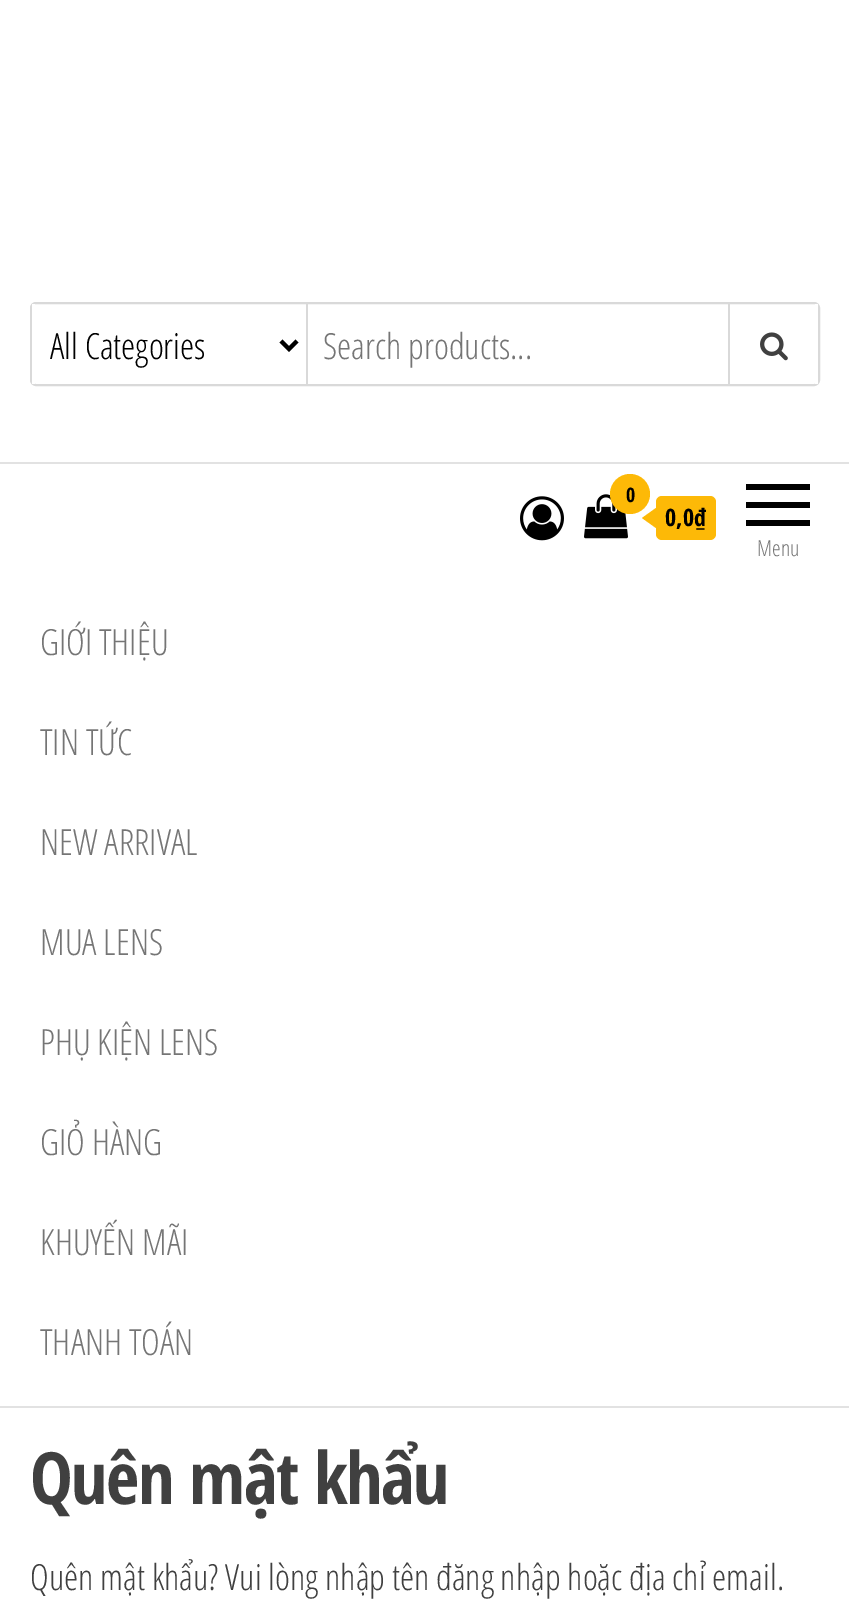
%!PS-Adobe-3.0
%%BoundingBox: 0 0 849 1609
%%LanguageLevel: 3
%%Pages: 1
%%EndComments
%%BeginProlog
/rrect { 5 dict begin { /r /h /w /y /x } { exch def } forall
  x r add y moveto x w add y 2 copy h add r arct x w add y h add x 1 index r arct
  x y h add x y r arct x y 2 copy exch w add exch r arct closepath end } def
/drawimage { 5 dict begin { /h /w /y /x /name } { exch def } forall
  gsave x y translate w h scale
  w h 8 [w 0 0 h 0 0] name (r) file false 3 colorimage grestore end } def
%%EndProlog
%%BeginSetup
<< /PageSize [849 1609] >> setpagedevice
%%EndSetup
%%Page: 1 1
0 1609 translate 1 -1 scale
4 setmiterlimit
1 setgray
0 0 849 1609 rectfill
0.851 setgray
2 setlinewidth
31 303 788 82 5 rrect stroke
1 setgray
32 304 3 80 rectfill
0.851 setgray
306 304 2 80 rectfill
0 setgray
4 setlinewidth
newpath 281 341 moveto 289 349 lineto 297 341 lineto stroke
1 setgray
815 304 3 80 rectfill
0.851 setgray
728 304 2 80 rectfill
(images/1.raw) 760 332 28 29 drawimage
0.886 setgray
0 462 849 2 rectfill
0 1406 849 2 rectfill
(images/2.raw) 520 496 44 45 drawimage
(images/3.raw) 584 494 44 45 drawimage
0.992 0.725 0.027 setrgbcolor
newpath 630 494 20 0 360 arc closepath fill
656 496 60 44 6 rrect fill
newpath 656 508 moveto 656 528 lineto 642 518 lineto closepath fill
0 setgray
746 484 64 6 rectfill
746 502 64 6 rectfill
746 520 64 6 rectfill
/OpenSansCondensed-Light [36 0 0 -36 0 0] selectfont
50 359 moveto (All Categories) show
0.459 setgray
323 359 moveto (Search products...) show
/OpenSansCondensed-Bold [20 0 0 -20 0 0] selectfont
0 setgray
626 502 moveto (0) show
/OpenSansCondensed-Bold [24 0 0 -24 0 0] selectfont
665 526 moveto (0,0₫) show
/OpenSansCondensed-Light [22 0 0 -22 0 0] selectfont
0.459 setgray
757 556 moveto (Menu) show
/OpenSansCondensed-Light [36 0 0 -36 0 0] selectfont
40 655 moveto (GIỚI THIỆU) show
40 755 moveto (TIN TỨC) show
40 855 moveto (NEW ARRIVAL) show
40 955 moveto (MUA LENS) show
40 1055 moveto (PHỤ KIỆN LENS) show
40 1155 moveto (GIỎ HÀNG) show
40 1255 moveto (KHUYẾN MÃI) show
40 1355 moveto (THANH TOÁN) show
/OpenSansCondensed-Bold [72 0 0 -72 0 0] selectfont
0.251 setgray
30 1504 moveto -1.5 0 (Quên mật khẩu) ashow
/OpenSansCondensed-Light [36 0 0 -36 0 0] selectfont
30 1590 moveto (Quên mật khẩu? Vui lòng nhập tên đăng nhập hoặc địa chỉ email.) show
showpage
%%EOF
